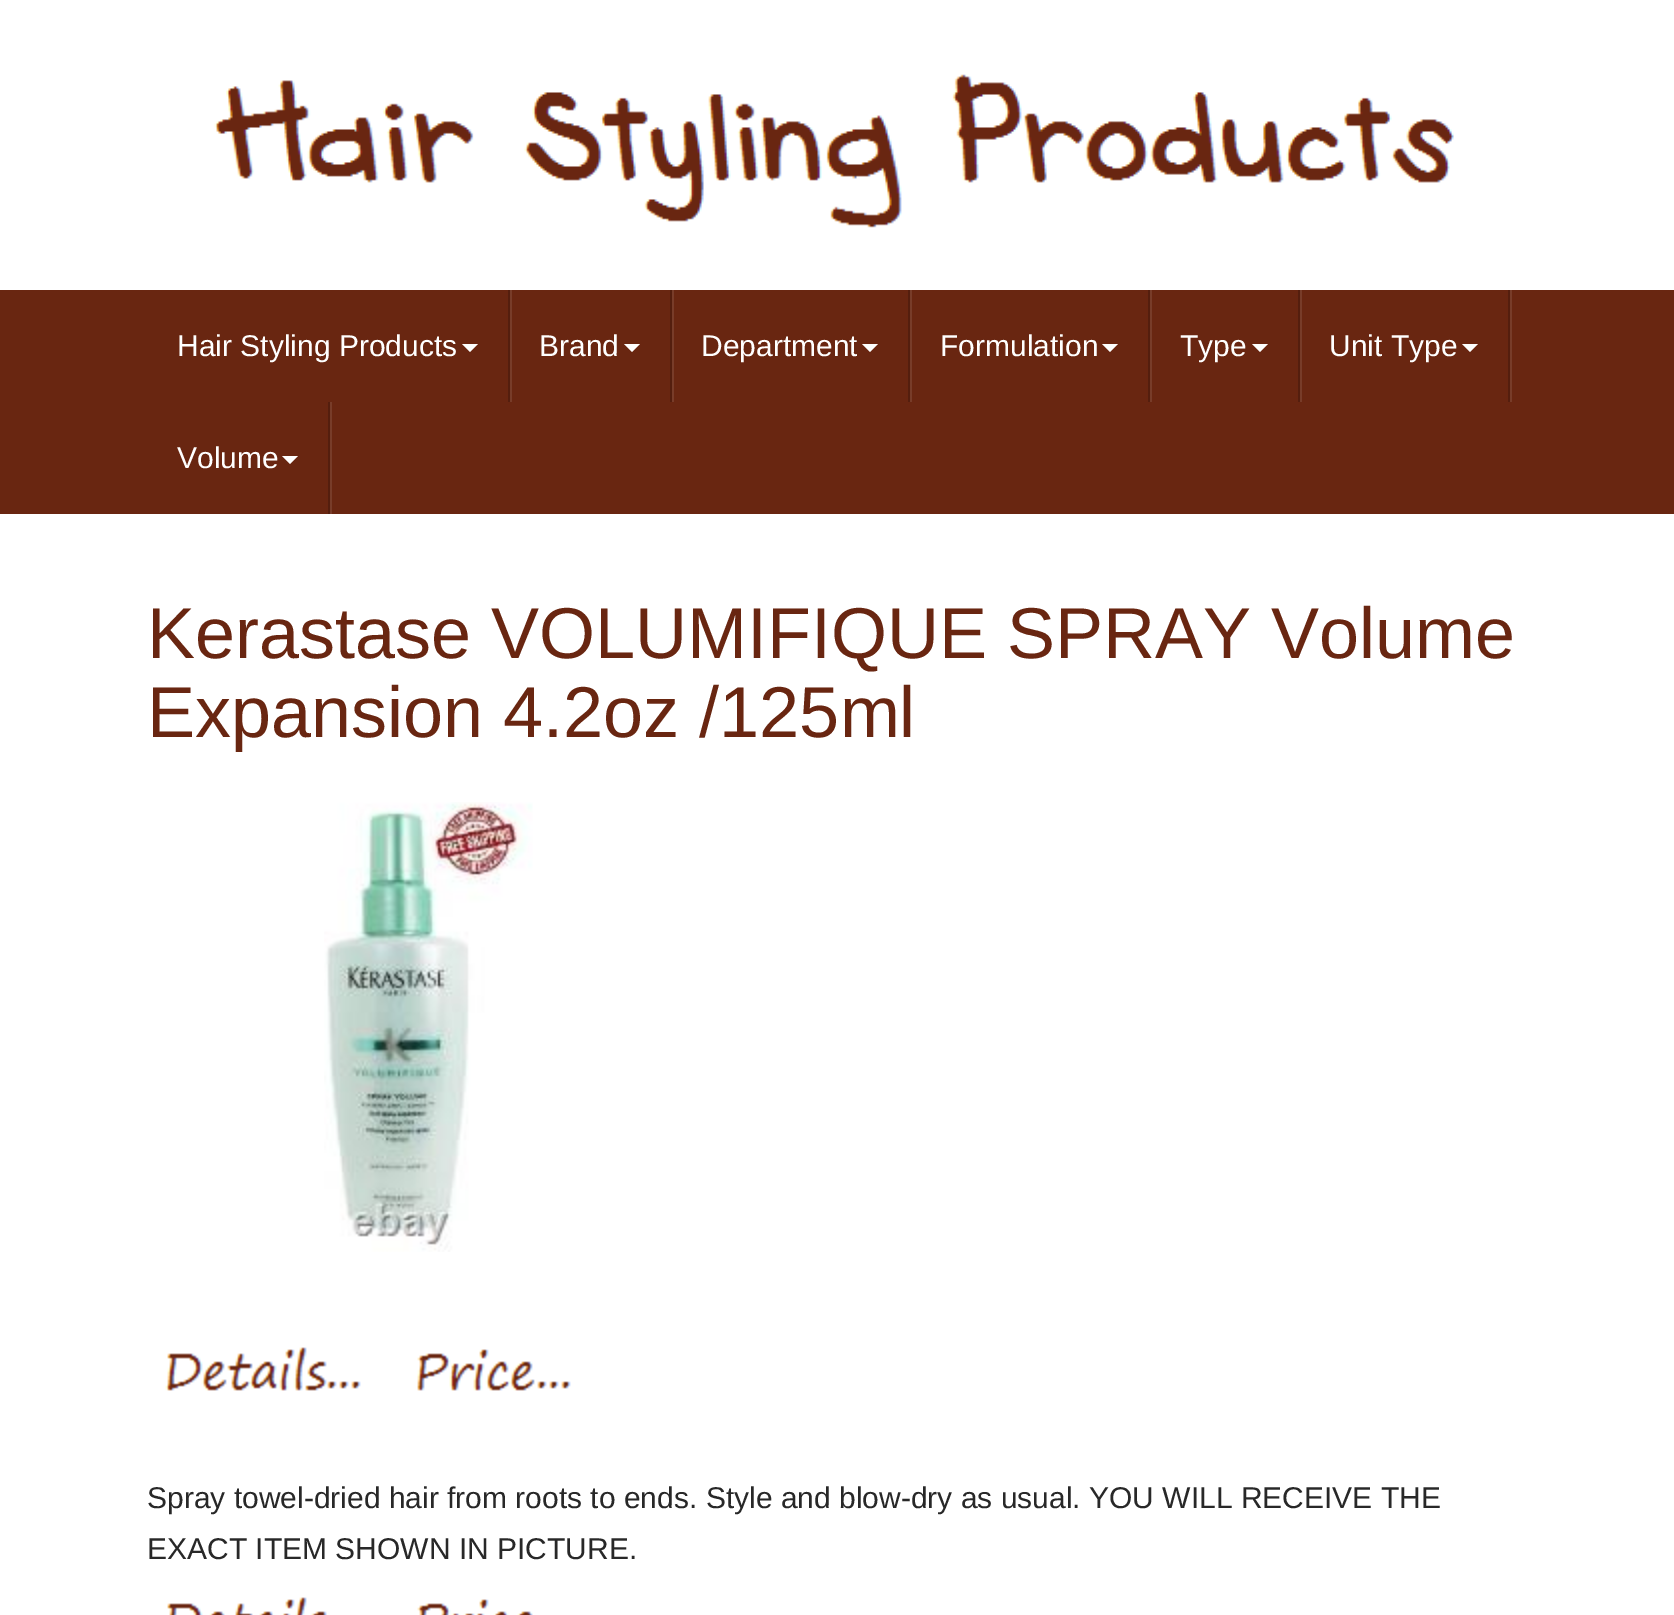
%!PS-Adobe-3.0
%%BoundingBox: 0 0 1674 1615
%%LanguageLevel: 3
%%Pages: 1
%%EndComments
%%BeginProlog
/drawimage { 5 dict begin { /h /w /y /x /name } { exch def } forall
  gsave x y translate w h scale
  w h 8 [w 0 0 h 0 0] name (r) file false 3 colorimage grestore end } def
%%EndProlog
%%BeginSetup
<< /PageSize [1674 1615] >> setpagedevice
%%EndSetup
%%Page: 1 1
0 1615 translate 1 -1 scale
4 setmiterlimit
1 setgray
0 0 1674 1615 rectfill
(images/1.raw) 214 74 1240 154 drawimage
0.412 0.149 0.067 setrgbcolor
0 290 1674 224 rectfill
0.471 0.235 0.161 setrgbcolor
510 290 2 112 rectfill
0.329 0.118 0.055 setrgbcolor
508 290 2 112 rectfill
1 setgray
newpath 462 344 moveto 478 344 lineto 470 352 lineto closepath fill
0.471 0.235 0.161 setrgbcolor
672 290 2 112 rectfill
0.329 0.118 0.055 setrgbcolor
670 290 2 112 rectfill
1 setgray
newpath 624 344 moveto 640 344 lineto 632 352 lineto closepath fill
0.471 0.235 0.161 setrgbcolor
910 290 2 112 rectfill
0.329 0.118 0.055 setrgbcolor
908 290 2 112 rectfill
1 setgray
newpath 862 344 moveto 878 344 lineto 870 352 lineto closepath fill
0.471 0.235 0.161 setrgbcolor
1150 290 2 112 rectfill
0.329 0.118 0.055 setrgbcolor
1148 290 2 112 rectfill
1 setgray
newpath 1102 344 moveto 1118 344 lineto 1110 352 lineto closepath fill
0.471 0.235 0.161 setrgbcolor
1300 290 2 112 rectfill
0.329 0.118 0.055 setrgbcolor
1298 290 2 112 rectfill
1 setgray
newpath 1252 344 moveto 1268 344 lineto 1260 352 lineto closepath fill
0.471 0.235 0.161 setrgbcolor
1510 290 2 112 rectfill
0.329 0.118 0.055 setrgbcolor
1508 290 2 112 rectfill
1 setgray
newpath 1462 344 moveto 1478 344 lineto 1470 352 lineto closepath fill
0.471 0.235 0.161 setrgbcolor
330 402 2 112 rectfill
0.329 0.118 0.055 setrgbcolor
328 402 2 112 rectfill
1 setgray
newpath 282 456 moveto 298 456 lineto 290 464 lineto closepath fill
(images/2.raw) 324 802 209 450 drawimage
(images/3.raw) 165 1347 196 44 drawimage
(images/4.raw) 417 1349 154 42 drawimage
(images/5.raw) 167 1597 160 18 drawimage
(images/6.raw) 417 1599 116 16 drawimage
/LiberationSans-Regular [30 0 0 -30 0 0] selectfont
177 356 moveto (Hair Styling Products) show
539 356 moveto (Brand) show
701 356 moveto (Department) show
940 356 moveto (Formulation) show
1180 356 moveto (Type) show
1329 356 moveto (Unit Type) show
177 468 moveto (Volume) show
/LiberationSans-Regular [72 0 0 -72 0 0] selectfont
0.412 0.149 0.067 setrgbcolor
147 658 moveto (Kerastase VOLUMIFIQUE SPRAY Volume) show
147 737 moveto (Expansion 4.2oz /125ml) show
/LiberationSans-Regular [30 0 0 -30 0 0] selectfont
0.157 setgray
147 1508 moveto (Spray towel-dried hair from roots to ends. Style and blow-dry as usual. YOU WILL RECEIVE THE) show
147 1559 moveto (EXACT ITEM SHOWN IN PICTURE.) show
showpage
%%EOF
